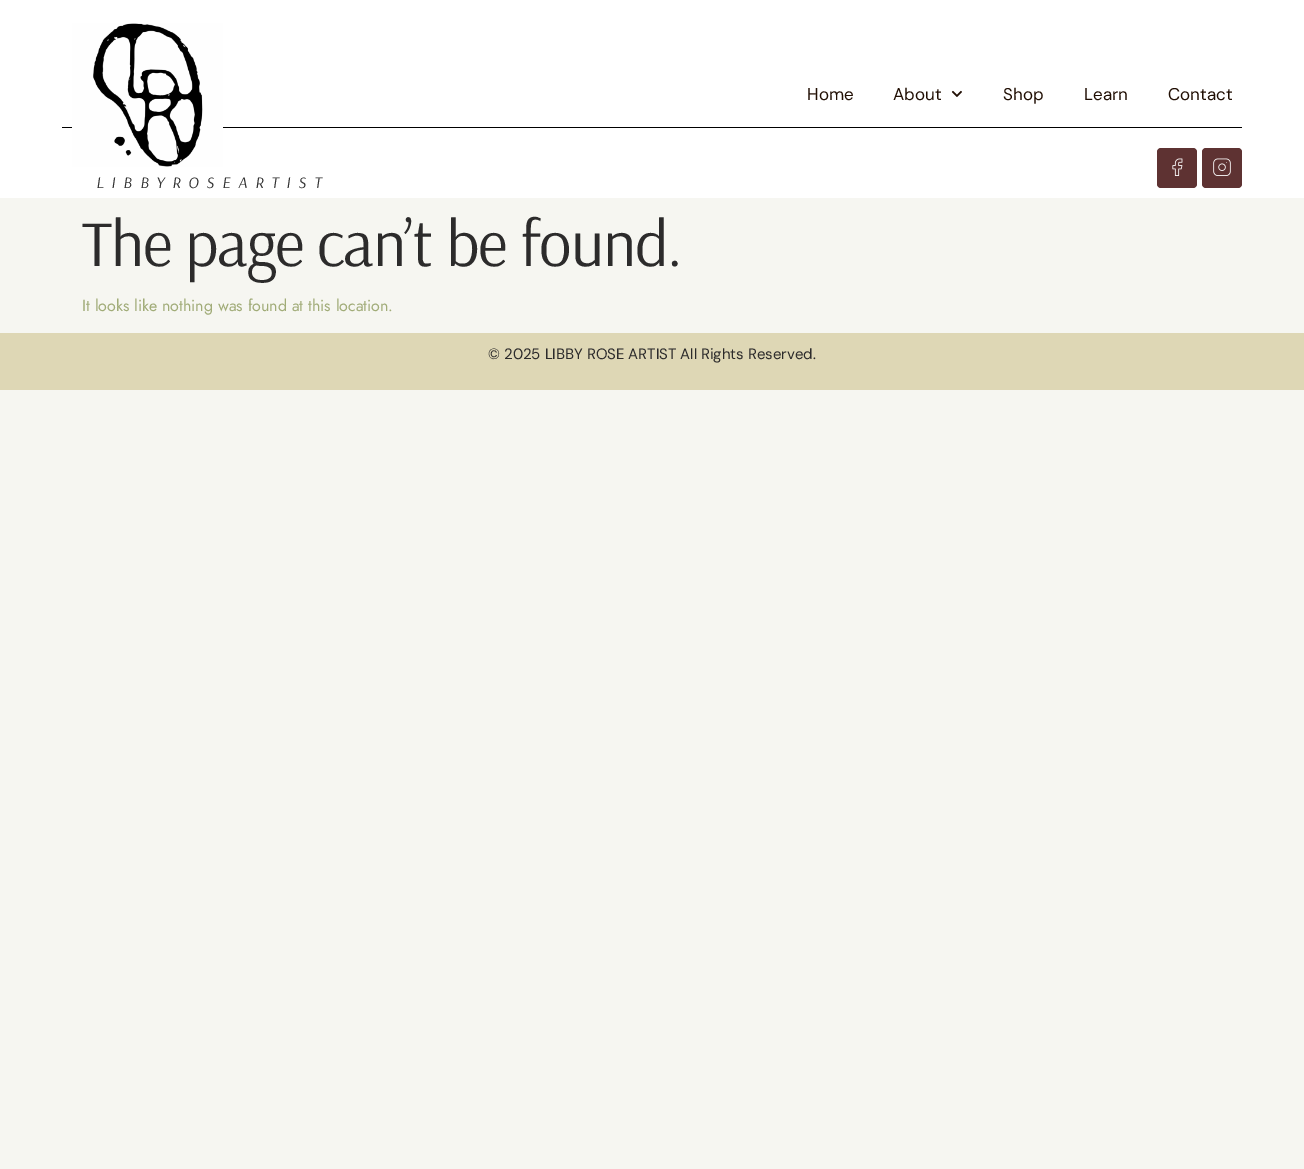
%!PS-Adobe-3.0
%%BoundingBox: 0 0 1304 1169
%%LanguageLevel: 3
%%Pages: 1
%%EndComments
%%BeginProlog
/rrect { 5 dict begin { /r /h /w /y /x } { exch def } forall
  x r add y moveto x w add y 2 copy h add r arct x w add y h add x 1 index r arct
  x y h add x y r arct x y 2 copy exch w add exch r arct closepath end } def
/drawimage { 5 dict begin { /h /w /y /x /name } { exch def } forall
  gsave x y translate w h scale
  w h 8 [w 0 0 h 0 0] name (r) file false 3 colorimage grestore end } def
%%EndProlog
%%BeginSetup
<< /PageSize [1304 1169] >> setpagedevice
%%EndSetup
%%Page: 1 1
0 1169 translate 1 -1 scale
4 setmiterlimit
0.965 0.965 0.945 setrgbcolor
0 0 1304 1169 rectfill
1 setgray
0 0 1304 198 rectfill
(images/1.raw) 951 90 11 7 drawimage
0 setgray
62 127 1180 1 rectfill
(images/2.raw) 72 23 151 144 drawimage
0.369 0.196 0.196 setrgbcolor
1157 148 40 40 4 rrect fill
(images/3.raw) 1172 158 11 18 drawimage
1202 148 40 40 4 rrect fill
(images/4.raw) 1213 158 18 18 drawimage
0.871 0.843 0.71 setrgbcolor
0 333 1304 57 rectfill
/DMSans-Regular [17 0 0 -17 0 0] selectfont
0.129 0.059 0.016 setrgbcolor
807 100 moveto (Home) show
893 100 moveto (About) show
1003 100 moveto (Shop) show
1084 100 moveto (Learn) show
1168 100 moveto (Contact) show
/Arsenal-Italic [16 0 0 -16 0 0] selectfont
0.2 setgray
96 188 moveto 2 0 (L I B B Y R O S E A R T I S T) ashow
/Arsenal-Regular [65 0 0 -65 0 0] selectfont
0.173 0.169 0.169 setrgbcolor
82 266 moveto -1.3 0 (The page can’t be found.) ashow
/Jost-Regular [16 0 0 -16 0 0] selectfont
0.631 0.675 0.471 setrgbcolor
82 311 moveto (It looks like nothing was found at this location.) show
/DMSans-Regular [15 0 0 -15 0 0] selectfont
0.173 0.169 0.169 setrgbcolor
488 359 moveto (© 2025 LIBBY ROSE ARTIST All Rights Reserved.) show
showpage
%%EOF
